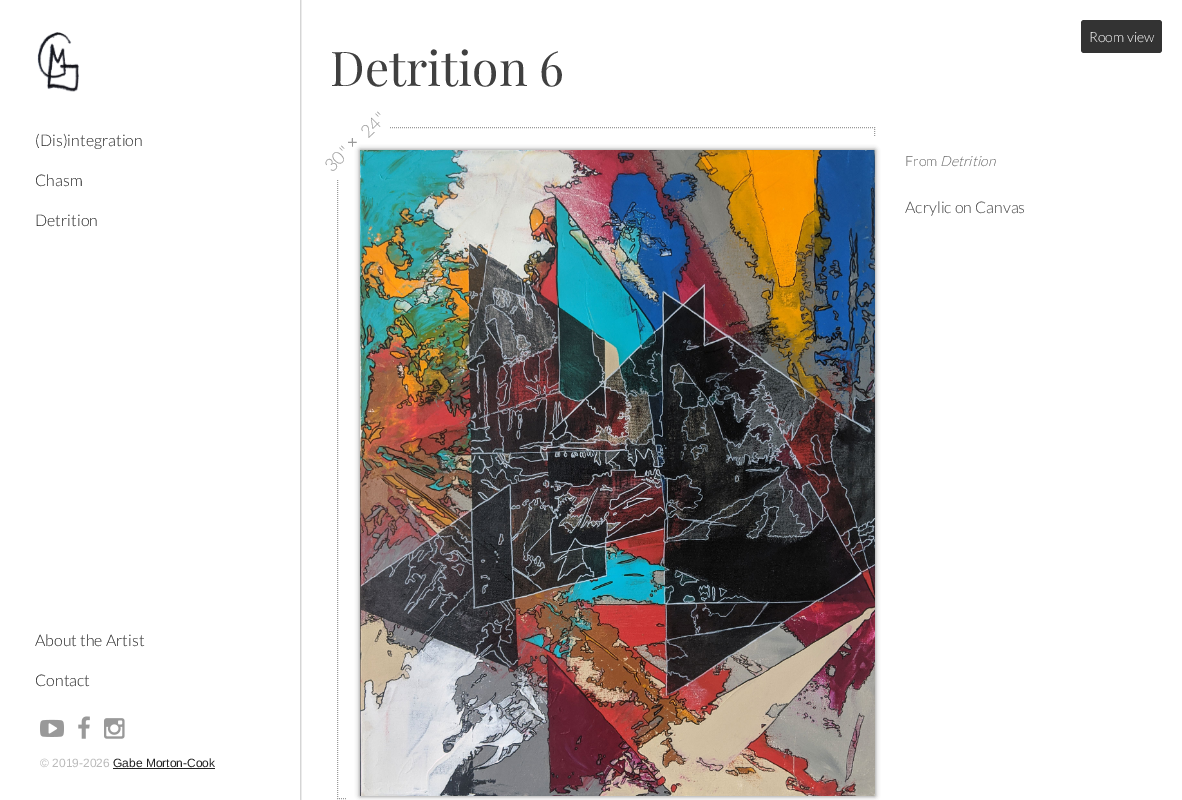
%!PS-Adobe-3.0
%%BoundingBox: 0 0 1182 800
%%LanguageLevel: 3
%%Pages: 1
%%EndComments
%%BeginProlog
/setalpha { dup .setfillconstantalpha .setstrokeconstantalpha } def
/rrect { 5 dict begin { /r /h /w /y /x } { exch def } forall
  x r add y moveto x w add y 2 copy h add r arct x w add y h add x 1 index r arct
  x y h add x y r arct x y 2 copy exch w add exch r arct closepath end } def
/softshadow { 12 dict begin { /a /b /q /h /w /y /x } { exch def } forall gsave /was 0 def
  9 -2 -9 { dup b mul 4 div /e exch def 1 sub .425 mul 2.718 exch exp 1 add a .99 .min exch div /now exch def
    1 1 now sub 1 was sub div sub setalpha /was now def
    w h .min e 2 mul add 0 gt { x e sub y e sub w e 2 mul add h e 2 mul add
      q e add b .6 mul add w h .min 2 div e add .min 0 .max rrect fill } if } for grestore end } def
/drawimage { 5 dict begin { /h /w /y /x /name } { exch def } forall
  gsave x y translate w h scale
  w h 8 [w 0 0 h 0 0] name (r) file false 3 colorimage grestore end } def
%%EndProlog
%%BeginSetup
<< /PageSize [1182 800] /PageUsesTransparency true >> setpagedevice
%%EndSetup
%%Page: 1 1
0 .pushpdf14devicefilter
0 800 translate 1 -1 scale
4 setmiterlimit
1 setgray
0 0 1182 800 rectfill
gsave
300 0 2 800 rectclip
0 setgray
0 0 300 800 0 1.5 0.4 softshadow
grestore
(images/1.raw) 37 32 42 60 drawimage
0.2 setgray
1081 20 81 33 3 rrect fill
0.6 setgray
[1 1] 0 setdash
newpath 390 127.5 moveto 875 127.5 lineto stroke
newpath 874.5 127 moveto 874.5 137 lineto stroke
0 setgray
360 150 515 646 0 2.5 0.5 softshadow
0.6 setgray
newpath 337 798.5 moveto 347 798.5 lineto stroke
newpath 337.5 180 moveto 337.5 799 lineto stroke
(images/2.raw) 360 150 515 646 drawimage
(images/3.raw) 40 719 24 18 drawimage
(images/4.raw) 78 716 12 23 drawimage
(images/5.raw) 104 718 21 21 drawimage
0.133 setgray
113 768 102 1 rectfill
/Lato-Light [16 0 0 -16 0 0] selectfont
35 146 moveto (\(Dis\)integration) show
35 186 moveto (Chasm) show
35 226 moveto (Detrition) show
35 646 moveto (About the Artist) show
35 686 moveto (Contact) show
/Lato-Light [14 0 0 -14 0 0] selectfont
1 setgray
1089 42 moveto (Room view) show
/PlayfairDisplay-Regular [48 0 0 -48 0 0] selectfont
0.251 setgray
330 86 moveto (Detrition 6) show
/Lato-Light [18 0 0 -18 0 0] selectfont
0.6 setgray
gsave 368 139 translate -45 rotate 0 0 moveto (24") show grestore
/DejaVuSans-Regular [12 0 0 -12 0 0] selectfont
gsave 352 149 translate -45 rotate 0 0 moveto (✕) show grestore
/Lato-Light [18 0 0 -18 0 0] selectfont
gsave 332 173 translate -45 rotate 0 0 moveto (30") show grestore
/Lato-Light [14 0 0 -14 0 0] selectfont
0.4 setgray
905 166 moveto (From) show
/Lato-LightItalic [14 0 0 -14 0 0] selectfont
940 166 moveto (Detrition) show
/Lato-Light [16 0 0 -16 0 0] selectfont
0.251 setgray
905 213 moveto (Acrylic on Canvas) show
/LiberationSans-Regular [12 0 0 -12 0 0] selectfont
0.733 setgray
40 767 moveto (© 2019-2026) show
0.133 setgray
113 767 moveto (Gabe Morton-Cook) show
.poppdf14devicefilter showpage
%%EOF
